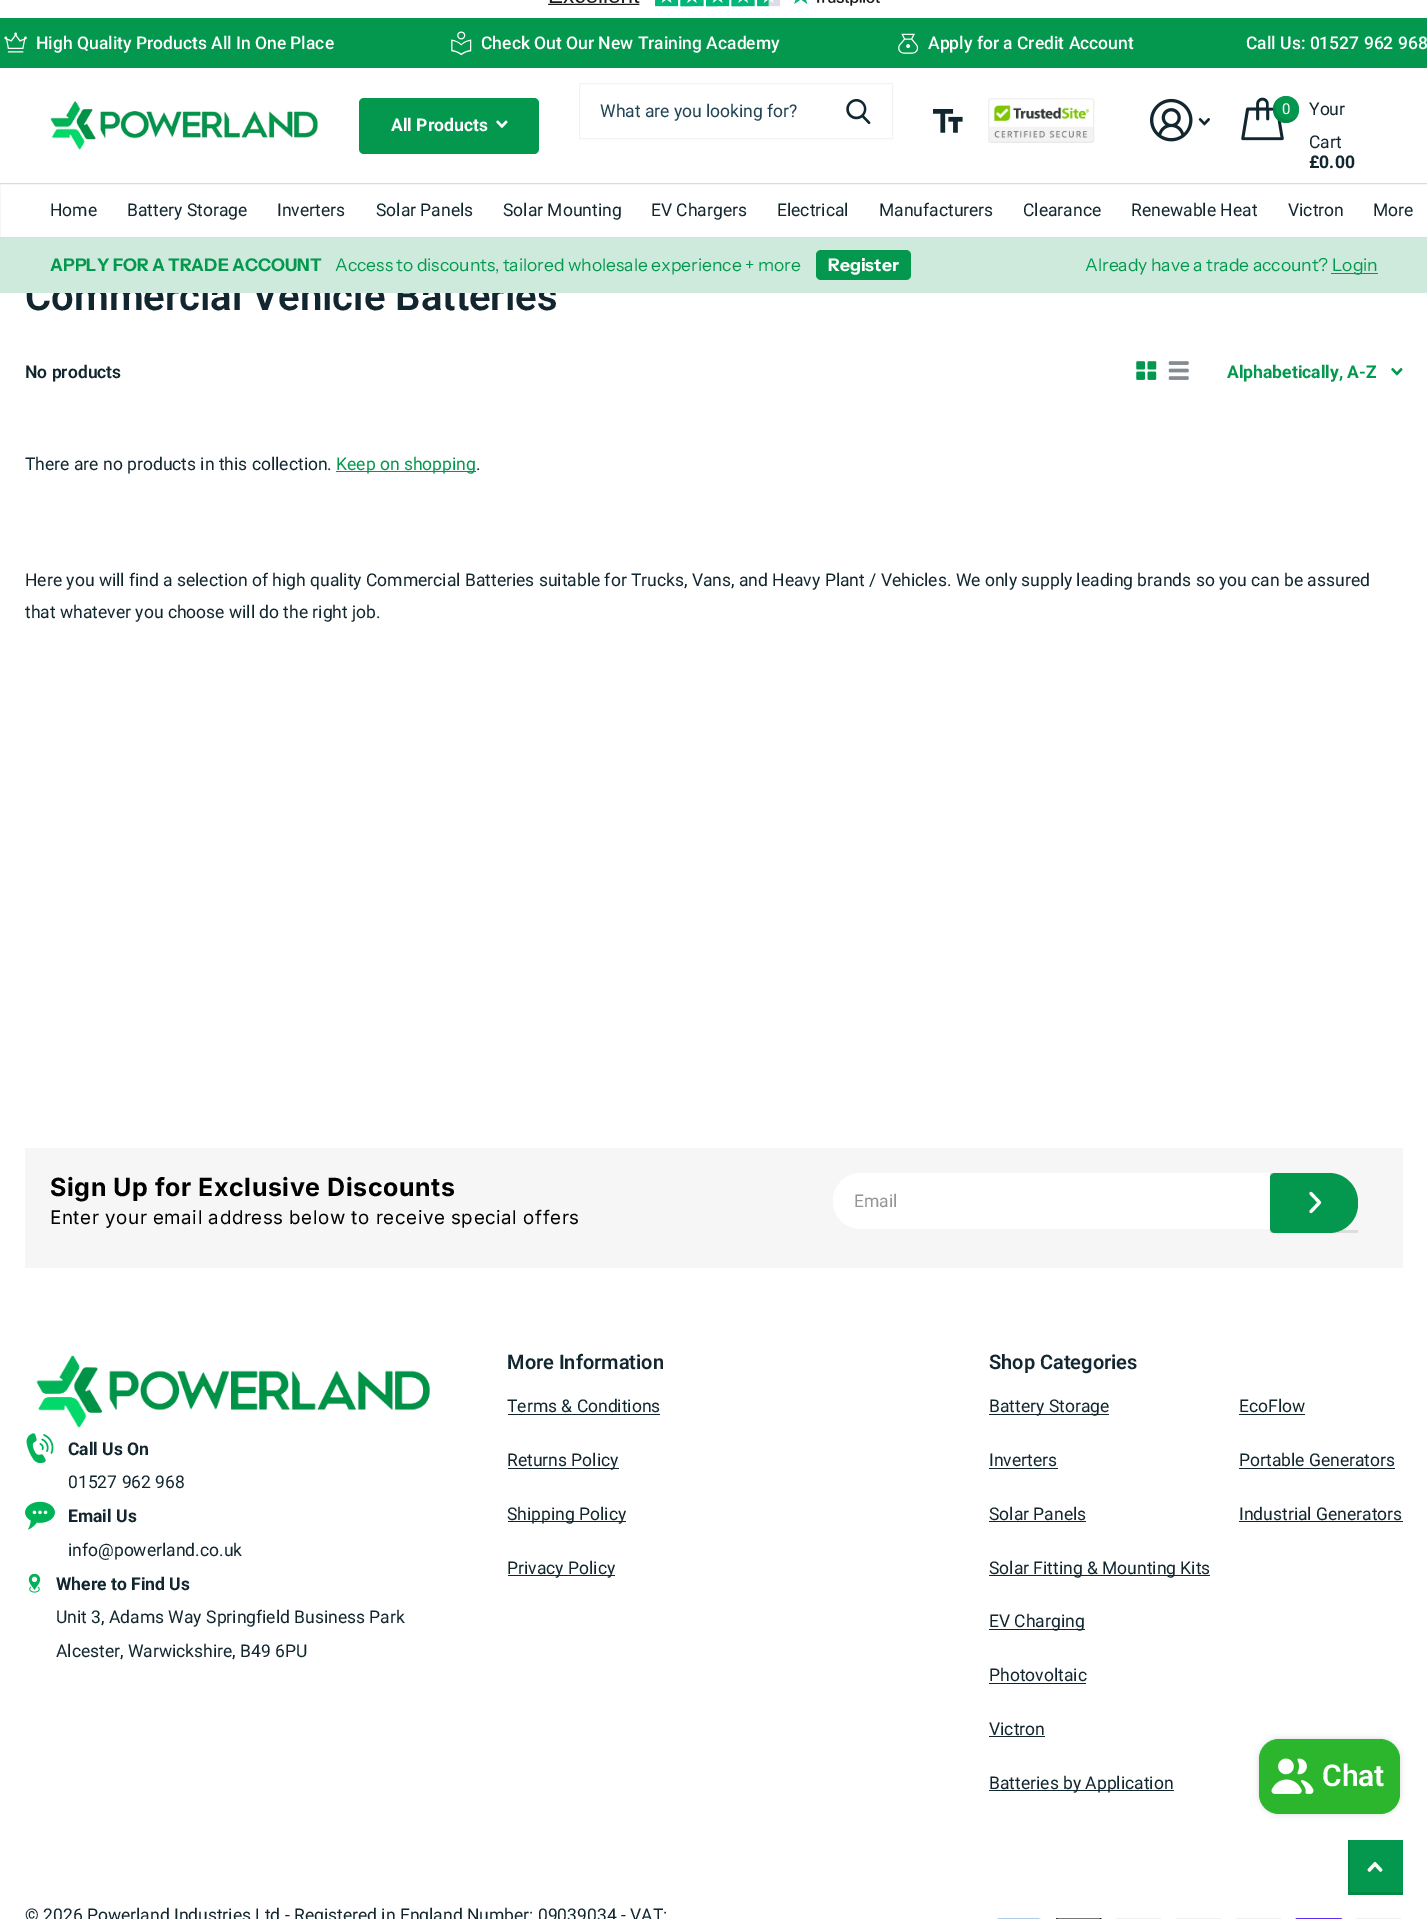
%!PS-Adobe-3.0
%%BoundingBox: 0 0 1427 1919
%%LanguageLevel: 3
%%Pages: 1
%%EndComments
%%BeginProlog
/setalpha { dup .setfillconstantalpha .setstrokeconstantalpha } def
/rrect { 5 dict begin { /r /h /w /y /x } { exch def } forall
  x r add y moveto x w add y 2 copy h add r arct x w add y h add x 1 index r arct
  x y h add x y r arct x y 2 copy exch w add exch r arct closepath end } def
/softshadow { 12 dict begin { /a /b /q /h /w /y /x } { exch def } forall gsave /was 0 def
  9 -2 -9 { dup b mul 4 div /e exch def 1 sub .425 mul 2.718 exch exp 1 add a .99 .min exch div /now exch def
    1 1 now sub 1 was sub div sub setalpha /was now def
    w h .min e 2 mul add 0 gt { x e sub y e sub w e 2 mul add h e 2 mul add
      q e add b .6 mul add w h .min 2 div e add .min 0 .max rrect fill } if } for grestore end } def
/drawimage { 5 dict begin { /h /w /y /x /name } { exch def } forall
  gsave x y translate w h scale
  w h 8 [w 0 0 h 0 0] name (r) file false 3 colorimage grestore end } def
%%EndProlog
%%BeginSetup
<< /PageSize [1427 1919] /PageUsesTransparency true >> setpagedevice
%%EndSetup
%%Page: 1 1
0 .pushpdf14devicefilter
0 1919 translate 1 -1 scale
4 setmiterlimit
1 setgray
0 0 1427 1919 rectfill
(images/1.raw) 548 0 332 7 drawimage
0.012 0.596 0.306 setrgbcolor
0 18 1427 50 rectfill
(images/2.raw) 4 32 23 21 drawimage
(images/3.raw) 451 31 21 25 drawimage
(images/4.raw) 898 33 21 21 drawimage
(images/5.raw) 50 101 269 49 drawimage
0.949 setgray
579.5 83.5 313 55 rectstroke
(images/6.raw) 846 98 25 26 drawimage
0.012 0.596 0.306 setrgbcolor
359 98 180 56 5 rrect fill
(images/7.raw) 496 120 12 8 drawimage
(images/8.raw) 933 109 30 24 drawimage
(images/9.raw) 988 98 107 45 drawimage
(images/10.raw) 1150 98 43 44 drawimage
(images/11.raw) 1198 118 12 8 drawimage
(images/12.raw) 1241 97 43 44 drawimage
1273 96 26 27 13 rrect fill
0.1 setalpha
0 setgray
newpath 1297.5 116 moveto 1295.5 118.5 1292.5 120 1288 120 curveto 1276 120 1272.5 106.5 1277.5 99 curveto 1272 104 1271.5 113.5 1277 119 curveto 1283 125.5 1293.5 123.5 1297.5 116 curveto closepath fill
1 setalpha
0.863 setgray
-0.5 183.5 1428 54 rectstroke
(images/13.raw) 1136 361 21 19 drawimage
(images/14.raw) 1168 361 21 19 drawimage
(images/15.raw) 1391 368 12 8 drawimage
0.012 0.596 0.306 setrgbcolor
336 471 140 1 rectfill
0.965 setgray
25 1148 1378 120 rectfill
1 setgray
newpath 861 1173 moveto 1270 1173 lineto 1270 1229 lineto 861 1229 lineto 845.5 1229 833 1216.5 833 1201 curveto 833 1185.5 845.5 1173 861 1173 curveto closepath fill
gsave
1270 1173 88 60 rectclip
0.867 setgray
newpath 1146 1049 moveto 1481 1049 lineto 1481 1356 lineto 1146 1356 lineto closepath 1272 1170 moveto 1360 1170 lineto 1360 1230 lineto 1272 1230 lineto closepath eofill
grestore
0.012 0.596 0.306 setrgbcolor
newpath 1275 1173 moveto 1329 1173 lineto 1345 1173 1358 1186 1358 1202 curveto 1358 1204 lineto 1358 1220 1345 1233 1329 1233 curveto 1275 1233 lineto 1272 1233 1270 1231 1270 1228 curveto 1270 1178 lineto 1270 1175 1272 1173 1275 1173 curveto closepath fill
1 setgray
3.1 setlinewidth
1 setlinecap
1 setlinejoin
newpath 1311 1211.5 moveto 1319.5 1202.5 lineto 1311 1193.5 lineto stroke
(images/16.raw) 36 1355 394 73 drawimage
(images/17.raw) 26 1433 28 30 drawimage
(images/18.raw) 25 1501 30 29 drawimage
(images/19.raw) 28 1574 13 19 drawimage
0.071 0.149 0.184 setrgbcolor
508 1414 152 1 rectfill
508 1468 111 1 rectfill
508 1521 118 1 rectfill
508 1575 107 1 rectfill
989 1414 120 1 rectfill
989 1468 69 1 rectfill
989 1521 97 1 rectfill
989 1575 221 1 rectfill
989 1629 96 1 rectfill
989 1683 97 1 rectfill
989 1736 56 1 rectfill
989 1790 185 1 rectfill
1239 1414 66 1 rectfill
1239 1468 156 1 rectfill
1239 1521 164 1 rectfill
(images/20.raw) 996 1918 45 1 drawimage
(images/21.raw) 1055 1918 47 1 drawimage
(images/22.raw) 1116 1918 45 1 drawimage
(images/22.raw) 1176 1918 45 1 drawimage
(images/22.raw) 1236 1918 45 1 drawimage
(images/23.raw) 1295 1918 48 1 drawimage
(images/22.raw) 1356 1918 45 1 drawimage
0.012 0.596 0.306 setrgbcolor
1350 1840 53 52 rectfill
gsave
1348 1840 55 55 rectclip
0.012 0.537 0.275 setrgbcolor
newpath 1224 1716 moveto 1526 1716 lineto 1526 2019 lineto 1224 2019 lineto closepath 1350 1838 moveto 1405 1838 lineto 1405 1892 lineto 1350 1892 lineto closepath eofill
grestore
(images/24.raw) 1367 1861 16 11 drawimage
0 setgray
1259 1739 141 75 20 3 0.15 softshadow
0.169 0.714 0.176 setrgbcolor
1259 1739 141 75 20 rrect fill
(images/25.raw) 1271 1758 43 36 drawimage
/Roboto-Medium [17.5 0 0 -17.5 0 0] selectfont
1 setgray
36 49 moveto (High Quality Products All In One Place) show
481 49 moveto (Check Out Our New Training Academy) show
928 49 moveto (Apply for a Credit Account) show
1246 49 moveto (Call Us: 01527 962 968) show
/Roboto-Regular [17.5 0 0 -17.5 0 0] selectfont
0.125 0.267 0.329 setrgbcolor
600 117 moveto (What are you looking for?) show
/Roboto-Bold [17.5 0 0 -17.5 0 0] selectfont
1 setgray
391 131 moveto (All Products) show
/Roboto-Regular [15 0 0 -15 0 0] selectfont
1282 114 moveto (0) show
/Roboto-Regular [17.5 0 0 -17.5 0 0] selectfont
0.071 0.149 0.184 setrgbcolor
1309 115 moveto (Your) show
1309 148 moveto (Cart) show
/Roboto-Bold [17.5 0 0 -17.5 0 0] selectfont
1309 168 moveto (£0.00) show
/Roboto-Regular [17.5 0 0 -17.5 0 0] selectfont
50 216 moveto (Home) show
127 216 moveto (Battery Storage) show
277 216 moveto (Inverters) show
376 216 moveto (Solar Panels) show
503 216 moveto (Solar Mounting) show
651 216 moveto (EV Chargers) show
777 216 moveto (Electrical) show
879 216 moveto (Manufacturers) show
1023 216 moveto (Clearance) show
1131 216 moveto (Renewable Heat) show
1288 216 moveto (Victron) show
1373 216 moveto (More) show
/Roboto-SemiBold [40 0 0 -40 0 0] selectfont
25 310 moveto (Commercial Vehicle Batteries) show
0.804 0.918 0.863 setrgbcolor
0 238 1427 55 rectfill
0.012 0.596 0.306 setrgbcolor
1331 273 47 1 rectfill
/InstrumentSans-Regular [17.5 0 0 -17.5 0 0] selectfont
1332 271 moveto (Login) show
1085 271 moveto (Already have a trade account?) show
816 250 95 30 5 rrect fill
/InstrumentSans-Bold [17.5 0 0 -17.5 0 0] selectfont
1 setgray
828 271 moveto (Register) show
/InstrumentSans-Regular [17.5 0 0 -17.5 0 0] selectfont
0.012 0.596 0.306 setrgbcolor
335 271 moveto (Access to discounts, tailored wholesale experience + more) show
/InstrumentSans-Bold [17.5 0 0 -17.5 0 0] selectfont
50 271 moveto (APPLY FOR A TRADE ACCOUNT) show
/Roboto-SemiBold [17.5 0 0 -17.5 0 0] selectfont
0.071 0.149 0.184 setrgbcolor
25 378 moveto (No products) show
/Roboto-Bold [17.5 0 0 -17.5 0 0] selectfont
0.012 0.596 0.306 setrgbcolor
1227 378 moveto (Alphabetically, A-Z) show
/Roboto-Regular [17.5 0 0 -17.5 0 0] selectfont
0.071 0.149 0.184 setrgbcolor
25 470 moveto (There are no products in this collection.) show
0.012 0.596 0.306 setrgbcolor
336 470 moveto (Keep on shopping) show
0.071 0.149 0.184 setrgbcolor
476 470 moveto (.) show
25 586 moveto (Here you will find a selection of high quality Commercial Batteries suitable for Trucks, Vans, and Heavy Plant / Vehicles. We only supply leading brands so you can be assured) show
25 618 moveto (that whatever you choose will do the right job.) show
/Inter-Bold [25 0 0 -25 0 0] selectfont
0 setgray
50 1196 moveto 0.55 0 (Sign Up for Exclusive Discounts) ashow
/Inter-Regular [18.75 0 0 -18.75 0 0] selectfont
50 1224 moveto 0.55 0 (Enter your email address below to receive special offers) ashow
/Roboto-Regular [17.5 0 0 -17.5 0 0] selectfont
0.584 setgray
854 1207 moveto (Email) show
/Roboto-Bold [17.5 0 0 -17.5 0 0] selectfont
0.071 0.149 0.184 setrgbcolor
68 1455 moveto (Call Us On) show
/Roboto-Regular [17.5 0 0 -17.5 0 0] selectfont
68 1488 moveto (01527 962 968) show
/Roboto-Bold [17.5 0 0 -17.5 0 0] selectfont
68 1522 moveto (Email Us) show
/Roboto-Regular [17.5 0 0 -17.5 0 0] selectfont
68 1556 moveto (info@powerland.co.uk) show
/Roboto-Bold [17.5 0 0 -17.5 0 0] selectfont
56 1590 moveto (Where to Find Us) show
/Roboto-Regular [17.5 0 0 -17.5 0 0] selectfont
56 1623 moveto (Unit 3, Adams Way Springfield Business Park) show
56 1657 moveto (Alcester, Warwickshire, B49 6PU) show
/Roboto-SemiBold [20 0 0 -20 0 0] selectfont
507 1369 moveto (More Information) show
/Roboto-Regular [17.5 0 0 -17.5 0 0] selectfont
507 1412 moveto (Terms & Conditions) show
507 1466 moveto (Returns Policy) show
507 1520 moveto (Shipping Policy) show
507 1574 moveto (Privacy Policy) show
/Roboto-SemiBold [20 0 0 -20 0 0] selectfont
989 1369 moveto (Shop Categories) show
/Roboto-Regular [17.5 0 0 -17.5 0 0] selectfont
989 1412 moveto (Battery Storage) show
989 1466 moveto (Inverters) show
989 1520 moveto (Solar Panels) show
989 1574 moveto (Solar Fitting & Mounting Kits) show
989 1627 moveto (EV Charging) show
989 1681 moveto (Photovoltaic) show
989 1735 moveto (Victron) show
989 1789 moveto (Batteries by Application) show
1239 1412 moveto (EcoFlow) show
1239 1466 moveto (Portable Generators) show
1239 1520 moveto (Industrial Generators) show
25 1921 moveto (© 2026 Powerland Industries Ltd - Registered in England Number: 09039034 - VAT:) show
/Roboto-SemiBold [30 0 0 -30 0 0] selectfont
1 setgray
1322 1786 moveto (Chat) show
.poppdf14devicefilter showpage
%%EOF
